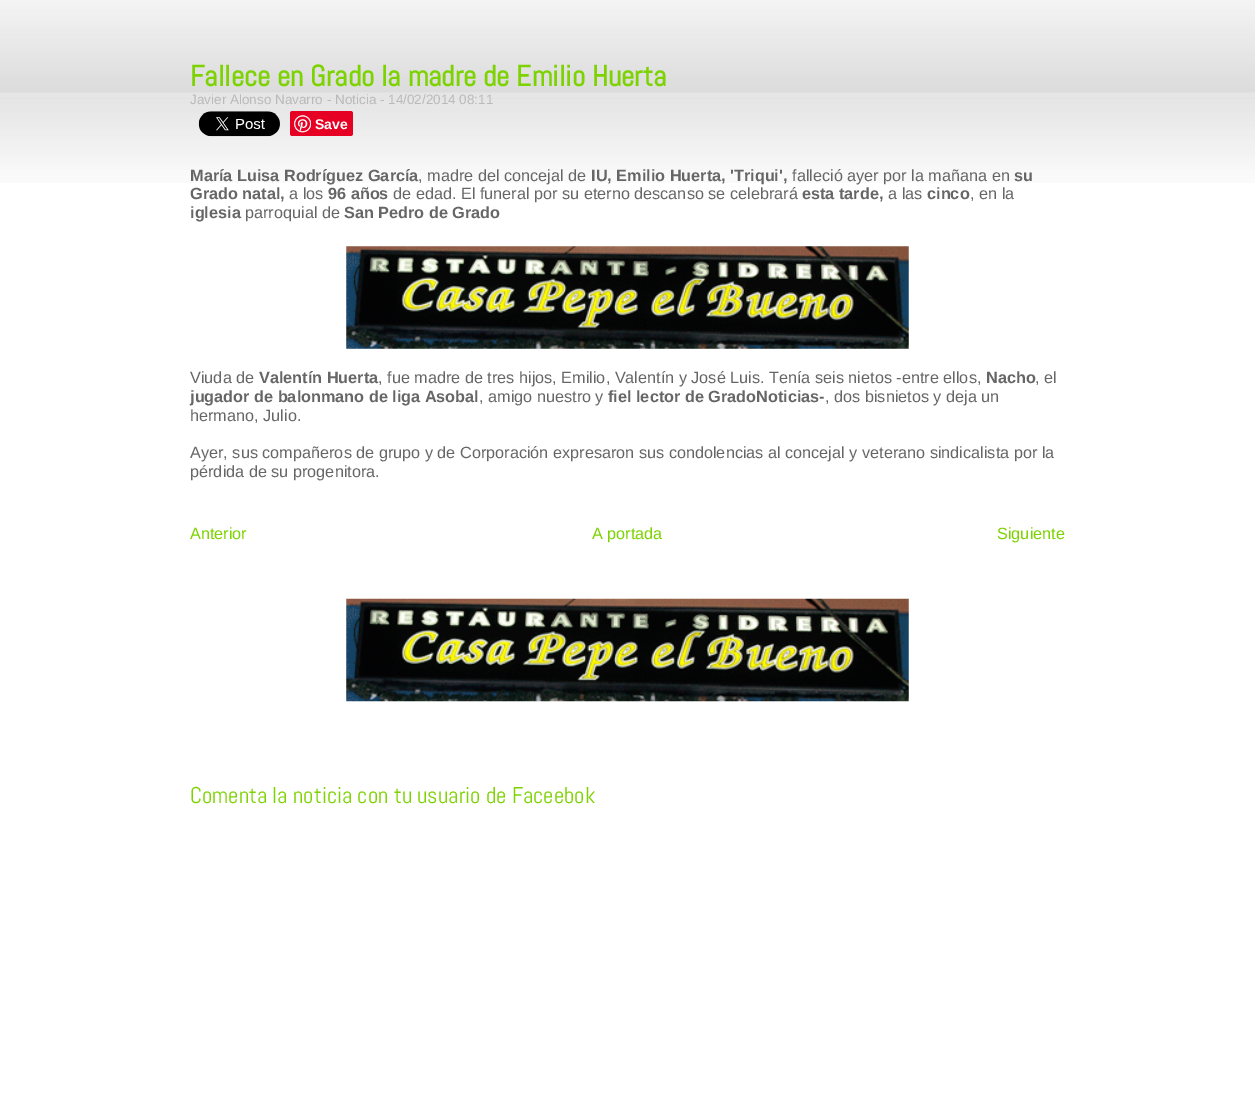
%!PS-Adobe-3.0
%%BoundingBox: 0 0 1255 1108
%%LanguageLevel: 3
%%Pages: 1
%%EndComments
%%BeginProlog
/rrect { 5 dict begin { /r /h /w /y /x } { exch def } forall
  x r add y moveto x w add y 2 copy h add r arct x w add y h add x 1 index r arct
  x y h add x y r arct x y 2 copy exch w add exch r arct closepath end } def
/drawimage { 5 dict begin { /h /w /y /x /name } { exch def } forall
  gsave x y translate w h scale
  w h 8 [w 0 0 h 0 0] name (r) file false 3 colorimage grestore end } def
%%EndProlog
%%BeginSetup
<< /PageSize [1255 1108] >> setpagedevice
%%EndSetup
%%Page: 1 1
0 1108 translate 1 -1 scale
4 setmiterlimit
1 setgray
0 0 1255 1108 rectfill
(images/1.raw) 0 0 1255 183 drawimage
(images/2.raw) 198 111 82 26 drawimage
0.902 0 0.137 setrgbcolor
290 111 63 25 2.5 rrect fill
(images/3.raw) 294 115 17 18 drawimage
(images/4.raw) 346 246 563 103 drawimage
(images/5.raw) 346 598 563 104 drawimage
/Abel-Bold [29.25 0 0 -29.25 0 0] selectfont
0.486 0.827 0 setrgbcolor
190 86 moveto (Fallece en Grado la madre de Emilio Huerta) show
/LiberationSans-Regular [13.5 0 0 -13.5 0 0] selectfont
0.729 setgray
190 104 moveto (Javier Alonso Navarro - Noticia - 14/02/2014 08:11) show
/LiberationSans-Bold [14 0 0 -14 0 0] selectfont
1 setgray
315 129 moveto (Save) show
/LiberationSans-Bold [16.25 0 0 -16.25 0 0] selectfont
0.4 setgray
190 181 moveto (María Luisa Rodríguez García) show
/LiberationSans-Regular [16.25 0 0 -16.25 0 0] selectfont
418 181 moveto (, madre del concejal de) show
/LiberationSans-Bold [16.25 0 0 -16.25 0 0] selectfont
591 181 moveto (IU, Emilio Huerta, 'Triqui',) show
/LiberationSans-Regular [16.25 0 0 -16.25 0 0] selectfont
792 181 moveto (falleció ayer por la mañana en) show
/LiberationSans-Bold [16.25 0 0 -16.25 0 0] selectfont
1014 181 moveto (su) show
190 199 moveto (Grado natal,) show
/LiberationSans-Regular [16.25 0 0 -16.25 0 0] selectfont
289 199 moveto (a los) show
/LiberationSans-Bold [16.25 0 0 -16.25 0 0] selectfont
328 199 moveto (96 años) show
/LiberationSans-Regular [16.25 0 0 -16.25 0 0] selectfont
393 199 moveto (de edad. El funeral por su eterno descanso se celebrará) show
/LiberationSans-Bold [16.25 0 0 -16.25 0 0] selectfont
802 199 moveto (esta tarde,) show
/LiberationSans-Regular [16.25 0 0 -16.25 0 0] selectfont
888 199 moveto (a las) show
/LiberationSans-Bold [16.25 0 0 -16.25 0 0] selectfont
927 199 moveto (cinco) show
/LiberationSans-Regular [16.25 0 0 -16.25 0 0] selectfont
970 199 moveto (, en la) show
/LiberationSans-Bold [16.25 0 0 -16.25 0 0] selectfont
190 218 moveto (iglesia) show
/LiberationSans-Regular [16.25 0 0 -16.25 0 0] selectfont
245 218 moveto (parroquial de) show
/LiberationSans-Bold [16.25 0 0 -16.25 0 0] selectfont
344 218 moveto (San Pedro de Grado) show
/LiberationSans-Regular [16.25 0 0 -16.25 0 0] selectfont
190 383 moveto (Viuda de) show
/LiberationSans-Bold [16.25 0 0 -16.25 0 0] selectfont
259 383 moveto (Valentín Huerta) show
/LiberationSans-Regular [16.25 0 0 -16.25 0 0] selectfont
378 383 moveto (, fue madre de tres hijos, Emilio, Valentín y José Luis. Tenía seis nietos -entre ellos,) show
/LiberationSans-Bold [16.25 0 0 -16.25 0 0] selectfont
986 383 moveto (Nacho) show
/LiberationSans-Regular [16.25 0 0 -16.25 0 0] selectfont
1035 383 moveto (, el) show
/LiberationSans-Bold [16.25 0 0 -16.25 0 0] selectfont
190 402 moveto (jugador de balonmano de liga Asobal) show
/LiberationSans-Regular [16.25 0 0 -16.25 0 0] selectfont
479 402 moveto (, amigo nuestro y) show
/LiberationSans-Bold [16.25 0 0 -16.25 0 0] selectfont
608 402 moveto (fiel lector de GradoNoticias-) show
/LiberationSans-Regular [16.25 0 0 -16.25 0 0] selectfont
825 402 moveto (, dos bisnietos y deja un) show
190 421 moveto (hermano, Julio.) show
190 458 moveto (Ayer, sus compañeros de grupo y de Corporación expresaron sus condolencias al concejal y veterano sindicalista por la) show
190 477 moveto (pérdida de su progenitora.) show
0.486 0.827 0 setrgbcolor
190 539 moveto (Anterior) show
592 539 moveto (A portada) show
997 539 moveto (Siguiente) show
/Abel-Regular [22.75 0 0 -22.75 0 0] selectfont
190 803 moveto (Comenta la noticia con tu usuario de Faceebok) show
showpage
%%EOF
